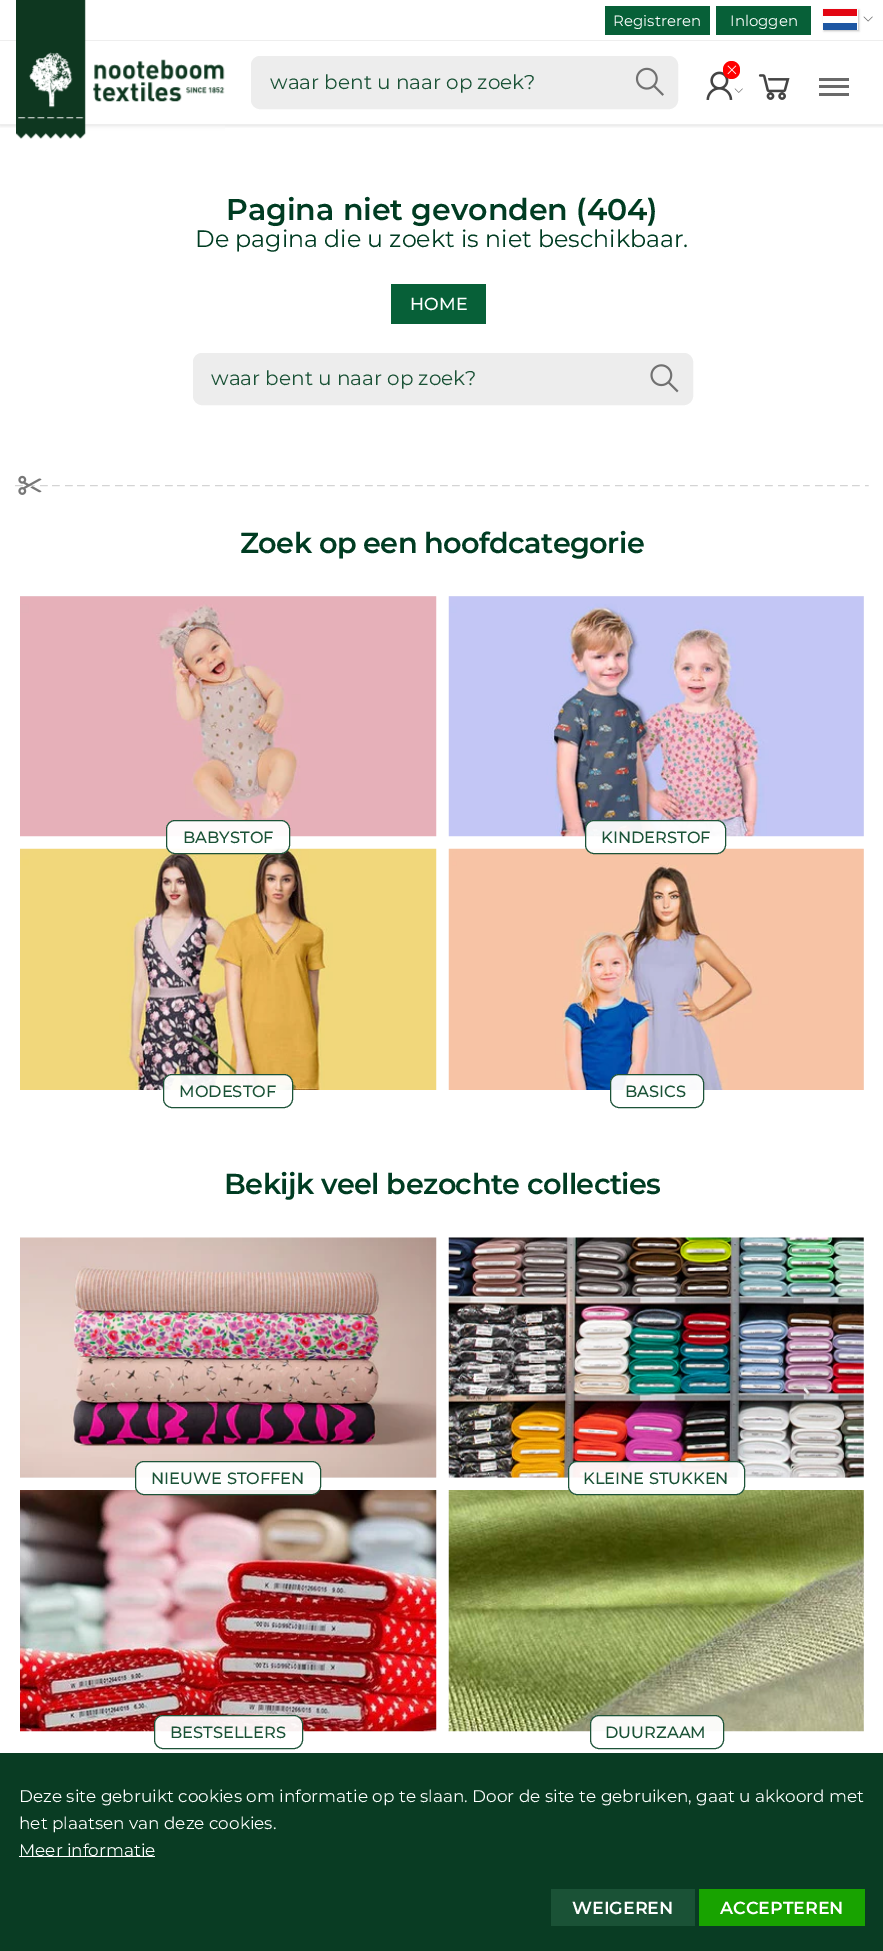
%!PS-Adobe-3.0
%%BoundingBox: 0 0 883 1951
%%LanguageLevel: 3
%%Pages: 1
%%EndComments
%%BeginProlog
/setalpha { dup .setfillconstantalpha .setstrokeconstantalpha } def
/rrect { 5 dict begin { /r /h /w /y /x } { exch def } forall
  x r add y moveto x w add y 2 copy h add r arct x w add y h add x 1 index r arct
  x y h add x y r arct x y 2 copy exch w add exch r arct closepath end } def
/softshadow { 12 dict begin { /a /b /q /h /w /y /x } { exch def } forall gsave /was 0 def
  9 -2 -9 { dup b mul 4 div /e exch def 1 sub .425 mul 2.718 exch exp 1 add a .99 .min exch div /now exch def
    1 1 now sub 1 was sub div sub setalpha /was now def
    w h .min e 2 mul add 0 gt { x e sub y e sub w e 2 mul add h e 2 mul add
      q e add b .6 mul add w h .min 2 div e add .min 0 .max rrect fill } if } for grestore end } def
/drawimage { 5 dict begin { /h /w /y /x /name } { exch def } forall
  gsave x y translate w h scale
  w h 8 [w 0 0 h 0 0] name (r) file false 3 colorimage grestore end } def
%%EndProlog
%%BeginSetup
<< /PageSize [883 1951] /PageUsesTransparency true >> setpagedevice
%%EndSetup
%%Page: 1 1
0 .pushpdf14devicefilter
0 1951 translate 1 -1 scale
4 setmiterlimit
1 setgray
0 0 883 1951 rectfill
gsave
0 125 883 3 rectclip
0 setgray
0 0 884 125 0 2.5 0.15 softshadow
grestore
0.027 0.376 0.22 setrgbcolor
605 6 105 29 rectfill
716 6 95 29 rectfill
gsave
newpath 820 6 moveto 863 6 lineto 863 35 lineto 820 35 lineto closepath 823 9 moveto 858 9 lineto 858 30 lineto 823 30 lineto closepath eoclip newpath
0 setgray
824 10 35 21 0 1 0.25 softshadow
grestore
0.118 0.341 0.639 setrgbcolor
823 23 34 7 rectfill
0.89 0.024 0.075 setrgbcolor
823 9 34 7 rectfill
(images/1.raw) 863 16 10 6 drawimage
0.933 setgray
0 40 883 1 rectfill
0 124 883 1 rectfill
(images/2.raw) 16 0 209 139 drawimage
0.929 setgray
251.5 56.5 426 52 8.5 rrect gsave fill grestore
stroke
(images/3.raw) 635 67 29 29 drawimage
(images/5.raw) 706 71 27 29 drawimage
1 0 0 setrgbcolor
723 61 17 18 8.5 rrect fill
(images/4.raw) 727 65 10 10 drawimage
(images/6.raw) 734 88 9 5 drawimage
(images/7.raw) 758 74 32 26 drawimage
0.416 setgray
819 78 30 3 rectfill
819 85 30 3 rectfill
819 93 30 3 rectfill
0.027 0.376 0.22 setrgbcolor
391 284 95 40 rectfill
0.929 setgray
193.5 353.5 499 51 8.5 rrect gsave fill grestore
stroke
(images/8.raw) 650 364 29 29 drawimage
(images/10.raw) 15 485 854 2 drawimage
(images/9.raw) 18 475 24 20 drawimage
(images/11.raw) 20 596 417 241 drawimage
(images/13.raw) 20 848 417 242 drawimage
0.94 setalpha
1 setgray
166.5 820.5 123 33 8.5 rrect fill
1 setalpha
0.11 0.325 0.22 setrgbcolor
166.5 820.5 123 33 8.5 rrect stroke
0.941 setgray
449 596 415 240 rectfill
(images/12.raw) 448 596 416 241 drawimage
(images/14.raw) 448 848 416 242 drawimage
0.94 setalpha
1 setgray
585.5 820.5 140 33 8.5 rrect fill
1 setalpha
0.11 0.325 0.22 setrgbcolor
585.5 820.5 140 33 8.5 rrect stroke
0.94 setalpha
1 setgray
163.5 1074.5 129 33 8.5 rrect fill
1 setalpha
0.11 0.325 0.22 setrgbcolor
163.5 1074.5 129 33 8.5 rrect stroke
0.94 setalpha
1 setgray
610.5 1074.5 93 33 8.5 rrect fill
1 setalpha
0.11 0.325 0.22 setrgbcolor
610.5 1074.5 93 33 8.5 rrect stroke
0.941 setgray
20 1477 416 1 rectfill
(images/15.raw) 20 1237 417 241 drawimage
(images/17.raw) 20 1490 417 242 drawimage
0.94 setalpha
1 setgray
135.5 1461.5 185 33 8.5 rrect fill
1 setalpha
0.11 0.325 0.22 setrgbcolor
135.5 1461.5 185 33 8.5 rrect stroke
0.941 setgray
449 1238 415 240 rectfill
(images/16.raw) 448 1237 416 241 drawimage
(images/18.raw) 448 1490 416 242 drawimage
0.94 setalpha
1 setgray
568.5 1461.5 176 33 8.5 rrect fill
1 setalpha
0.11 0.325 0.22 setrgbcolor
568.5 1461.5 176 33 8.5 rrect stroke
0.94 setalpha
1 setgray
154.5 1715.5 148 33 8.5 rrect fill
1 setalpha
0.11 0.325 0.22 setrgbcolor
154.5 1715.5 148 33 8.5 rrect stroke
0.94 setalpha
1 setgray
590.5 1715.5 133 33 8.5 rrect fill
1 setalpha
0.11 0.325 0.22 setrgbcolor
590.5 1715.5 133 33 8.5 rrect stroke
0.035 0.235 0.137 setrgbcolor
0 1753 883 198 rectfill
1 setgray
19 1856 136 1 rectfill
0.102 0.322 0.212 setrgbcolor
551 1889 144 37 rectfill
0.094 0.639 0 setrgbcolor
699 1889 166 37 rectfill
/Montserrat-Regular [15 0 0 -15 0 0] selectfont
1 setgray
613 26 moveto (Registreren) show
730 26 moveto (Inloggen) show
/Montserrat-Regular [20 0 0 -20 0 0] selectfont
0.102 0.322 0.212 setrgbcolor
270 89 moveto (waar bent u naar op zoek?) show
/Montserrat-SemiBold [30 0 0 -30 0 0] selectfont
0 0.235 0.133 setrgbcolor
226 220 moveto (Pagina niet gevonden \(404\)) show
/Montserrat-Regular [23.75 0 0 -23.75 0 0] selectfont
195 247 moveto (De pagina die u zoekt is niet beschikbaar.) show
/Montserrat-Medium [17.5 0 0 -17.5 0 0] selectfont
1 setgray
410 310 moveto (HOME) show
/Montserrat-Regular [20 0 0 -20 0 0] selectfont
0.102 0.322 0.212 setrgbcolor
211 385 moveto (waar bent u naar op zoek?) show
/Montserrat-SemiBold [28.75 0 0 -28.75 0 0] selectfont
0 0.235 0.133 setrgbcolor
240 553 moveto -0.6 0 (Zoek op een hoofdcategorie) ashow
/Montserrat-Medium [16.25 0 0 -16.25 0 0] selectfont
0.102 0.322 0.212 setrgbcolor
183 843 moveto (BABYSTOF) show
601 843 moveto (KINDERSTOF) show
179 1097 moveto (MODESTOF) show
625 1097 moveto (BASICS) show
/Montserrat-SemiBold [28.75 0 0 -28.75 0 0] selectfont
0 0.235 0.133 setrgbcolor
224 1194 moveto -0.6 0 (Bekijk veel bezochte collecties) ashow
/Montserrat-Medium [16.25 0 0 -16.25 0 0] selectfont
0.102 0.322 0.212 setrgbcolor
151 1484 moveto (NIEUWE STOFFEN) show
583 1484 moveto (KLEINE STUKKEN) show
170 1738 moveto (BESTSELLERS) show
605 1738 moveto (DUURZAAM) show
/Montserrat-Regular [16.9 0 0 -16.9 0 0] selectfont
1 setgray
19 1802 moveto (Deze site gebruikt cookies om informatie op te slaan. Door de site te gebruiken, gaat u akkoord met) show
19 1829 moveto (het plaatsen van deze cookies.) show
19 1856 moveto (Meer informatie) show
/Montserrat-SemiBold [17.5 0 0 -17.5 0 0] selectfont
572 1914 moveto (WEIGEREN) show
720 1914 moveto (ACCEPTEREN) show
.poppdf14devicefilter showpage
%%EOF
